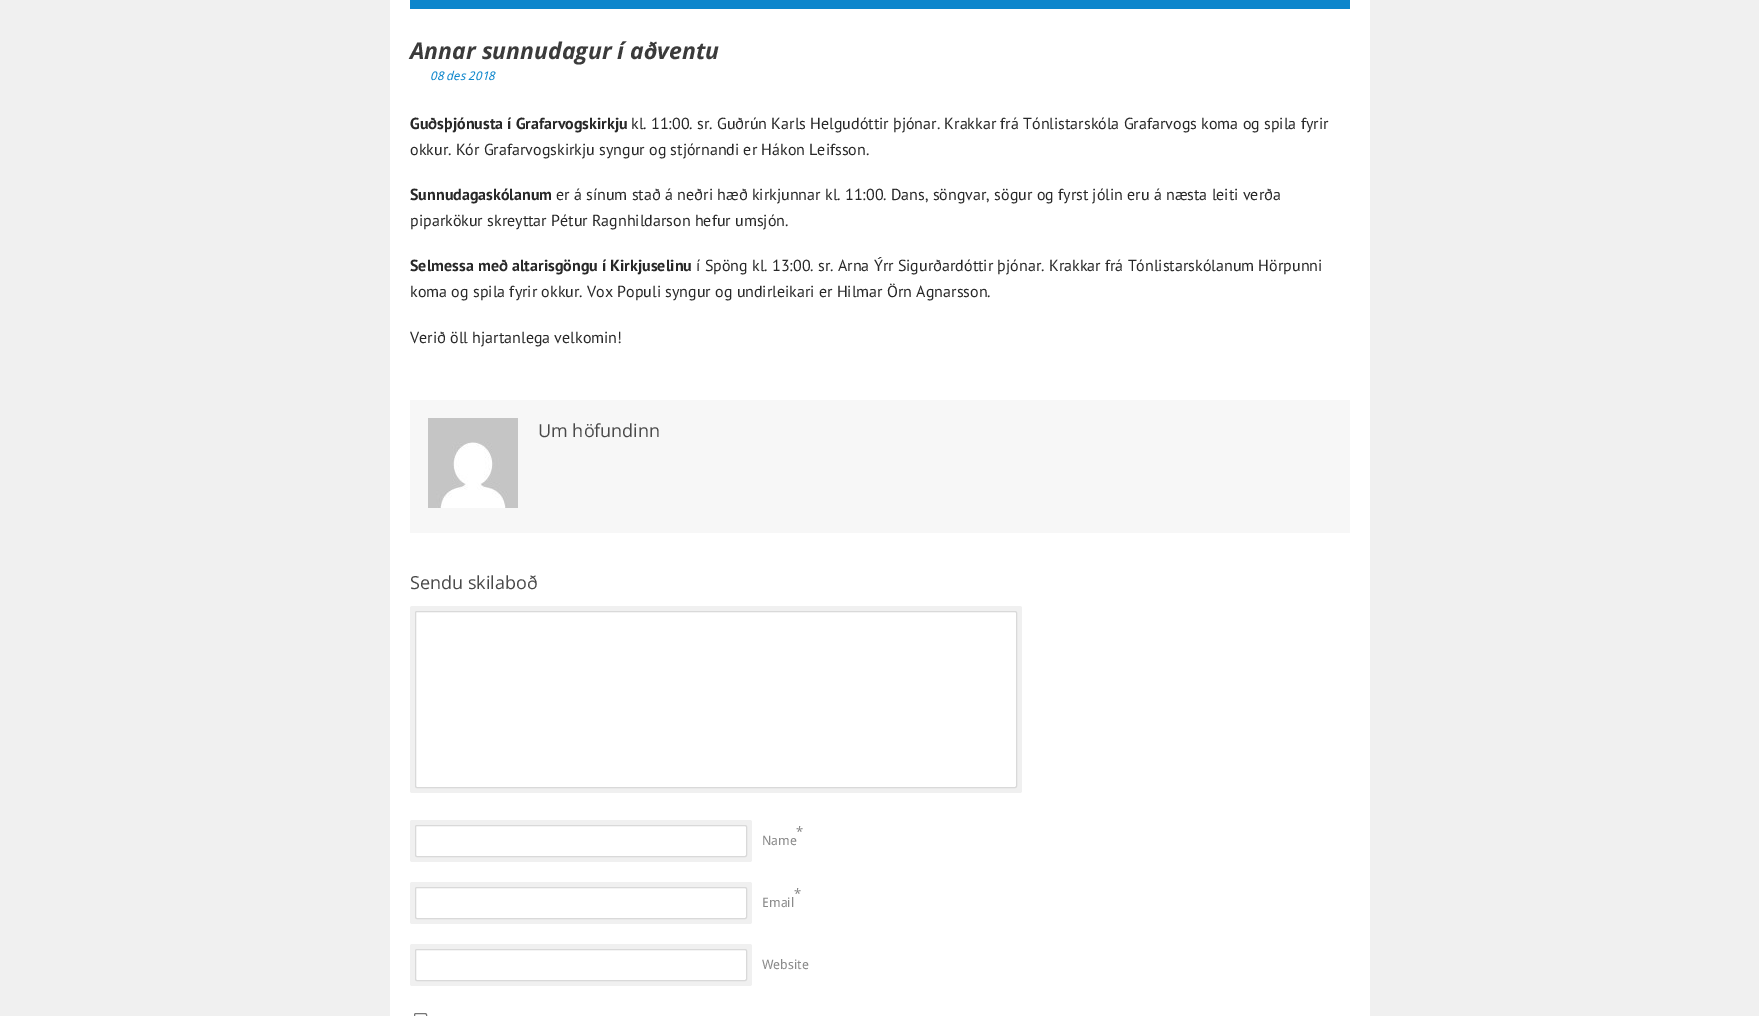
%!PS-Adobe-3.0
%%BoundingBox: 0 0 1759 1016
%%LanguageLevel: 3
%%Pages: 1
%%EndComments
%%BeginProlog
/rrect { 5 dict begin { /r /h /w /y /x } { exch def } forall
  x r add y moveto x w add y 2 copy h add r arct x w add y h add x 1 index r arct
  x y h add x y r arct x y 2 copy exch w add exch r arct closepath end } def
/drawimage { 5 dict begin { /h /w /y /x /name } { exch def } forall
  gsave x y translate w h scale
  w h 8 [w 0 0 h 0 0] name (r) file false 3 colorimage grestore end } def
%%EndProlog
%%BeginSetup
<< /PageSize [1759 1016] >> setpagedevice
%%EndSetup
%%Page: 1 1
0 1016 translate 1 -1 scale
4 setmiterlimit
0.941 setgray
0 0 1759 1016 rectfill
1 setgray
390 0 980 1016 rectfill
0.051 0.525 0.8 setrgbcolor
410 0 940 9 rectfill
0.969 setgray
410 400 940 133 rectfill
(images/1.raw) 428 418 90 90 drawimage
0.941 setgray
newpath 412 616 moveto 411 616 410 617 410 618 curveto 410 791 lineto 410 792 411 793 412 793 curveto 1010 793 lineto 1011 793 1012 792 1012 791 curveto 1012 788 lineto 417 788 lineto 416 788 415 787 415 786 curveto 415 616 lineto closepath fill
newpath 422 606 moveto 419 606 420 609 420 611 curveto 1015 611 lineto 1016 611 1017 612 1017 613 curveto 1017 783 lineto 1019 783 1022 784 1022 781 curveto 1022 607 lineto 1020 606 lineto closepath fill
newpath 415 786 moveto 415 791 lineto 415 792 416 793 417 793 curveto 1015 793 lineto 1016 793 1017 792 1017 791 curveto 1017 786 lineto 1017 787 1016 788 1015 788 curveto 417 788 lineto 416 788 415 787 415 786 curveto closepath fill
newpath 1015 788 moveto 1020 788 lineto 1021 788 1022 787 1022 786 curveto 1022 613 lineto 1022 612 1021 611 1020 611 curveto 1015 611 lineto 1016 611 1017 612 1017 613 curveto 1017 786 lineto 1017 787 1016 788 1015 788 curveto closepath fill
newpath 420 788 moveto 420 791 lineto 420 792 421 793 422 793 curveto 1020 793 lineto 1021 793 1022 792 1022 791 curveto 1022 618 lineto 1022 617 1021 616 1020 616 curveto 1017 616 lineto 1017 786 lineto 1017 787 1016 788 1015 788 curveto closepath fill
newpath 412 606 moveto 410 607 lineto 410 781 lineto 410 784 413 783 415 783 curveto 415 613 lineto 415 612 416 611 417 611 curveto 1012 611 lineto 1012 609 1013 606 1010 606 curveto closepath fill
1 setgray
415.5 611.5 601 176 1.5 rrect gsave fill grestore
0.851 setgray
stroke
0.941 setgray
newpath 412 830 moveto 411 830 410 831 410 832 curveto 410 860 lineto 410 861 411 862 412 862 curveto 740 862 lineto 741 862 742 861 742 860 curveto 742 857 lineto 417 857 lineto 416 857 415 856 415 855 curveto 415 830 lineto closepath fill
newpath 422 820 moveto 419 820 420 823 420 825 curveto 745 825 lineto 746 825 747 826 747 827 curveto 747 852 lineto 750 852 lineto 751 852 752 851 752 850 curveto 752 822 lineto 752 821 751 820 750 820 curveto closepath fill
newpath 415 855 moveto 415 857 414 861 416 862 curveto 745 862 lineto 748 862 747 857 747 855 curveto 747 856 746 857 745 857 curveto 417 857 lineto 416 857 415 856 415 855 curveto closepath fill
newpath 745 857 moveto 752 857 752 858 752 850.5 curveto 752 831.5 lineto 752 824 752 825 745 825 curveto 746 825 747 826 747 827 curveto 747 855 lineto 747 856 746 857 745 857 curveto closepath fill
newpath 420 857 moveto 420 860 lineto 420 861 421 862 422 862 curveto 750 862 lineto 751 862 752 861 752 860 curveto 752 832 lineto 752 831 751 830 750 830 curveto 747 830 lineto 747 855 lineto 747 856 746 857 745 857 curveto closepath fill
newpath 412 820 moveto 411 820 410 821 410 822 curveto 410 850 lineto 410 851 411 852 412 852 curveto 415 852 lineto 415 827 lineto 415 826 416 825 417 825 curveto 742 825 lineto 742 823 743 820 740 820 curveto closepath fill
1 setgray
415.5 825.5 331 31 1.5 rrect gsave fill grestore
0.851 setgray
stroke
0.941 setgray
newpath 412 892 moveto 411 892 410 893 410 894 curveto 410 922 lineto 410 923 411 924 412 924 curveto 740 924 lineto 741 924 742 923 742 922 curveto 742 919 lineto 417 919 lineto 416 919 415 918 415 917 curveto 415 892 lineto closepath fill
newpath 422 882 moveto 419 882 420 885 420 887 curveto 745 887 lineto 746 887 747 888 747 889 curveto 747 914 lineto 750 914 lineto 751 914 752 913 752 912 curveto 752 884 lineto 752 883 751 882 750 882 curveto closepath fill
newpath 415 917 moveto 415 919 414 923 416 924 curveto 745 924 lineto 748 924 747 919 747 917 curveto 747 918 746 919 745 919 curveto 417 919 lineto 416 919 415 918 415 917 curveto closepath fill
newpath 745 919 moveto 752 919 752 920 752 912.5 curveto 752 893.5 lineto 752 886 752 887 745 887 curveto 746 887 747 888 747 889 curveto 747 917 lineto 747 918 746 919 745 919 curveto closepath fill
newpath 420 919 moveto 420 922 lineto 420 923 421 924 422 924 curveto 750 924 lineto 751 924 752 923 752 922 curveto 752 894 lineto 752 893 751 892 750 892 curveto 747 892 lineto 747 917 lineto 747 918 746 919 745 919 curveto closepath fill
newpath 412 882 moveto 411 882 410 883 410 884 curveto 410 912 lineto 410 913 411 914 412 914 curveto 415 914 lineto 415 889 lineto 415 888 416 887 417 887 curveto 742 887 lineto 742 885 743 882 740 882 curveto closepath fill
1 setgray
415.5 887.5 331 31 1.5 rrect gsave fill grestore
0.851 setgray
stroke
0.941 setgray
newpath 412 954 moveto 411 954 410 955 410 956 curveto 410 984 lineto 410 985 411 986 412 986 curveto 740 986 lineto 741 986 742 985 742 984 curveto 742 981 lineto 417 981 lineto 416 981 415 980 415 979 curveto 415 954 lineto closepath fill
newpath 422 944 moveto 419 944 420 947 420 949 curveto 745 949 lineto 746 949 747 950 747 951 curveto 747 976 lineto 750 976 lineto 751 976 752 975 752 974 curveto 752 946 lineto 752 945 751 944 750 944 curveto closepath fill
newpath 415 979 moveto 415 981 414 985 416 986 curveto 745 986 lineto 748 986 747 981 747 979 curveto 747 980 746 981 745 981 curveto 417 981 lineto 416 981 415 980 415 979 curveto closepath fill
newpath 745 981 moveto 752 981 752 982 752 974.5 curveto 752 955.5 lineto 752 948 752 949 745 949 curveto 746 949 747 950 747 951 curveto 747 979 lineto 747 980 746 981 745 981 curveto closepath fill
newpath 420 981 moveto 420 984 lineto 420 985 421 986 422 986 curveto 750 986 lineto 751 986 752 985 752 984 curveto 752 956 lineto 752 955 751 954 750 954 curveto 747 954 lineto 747 979 lineto 747 980 746 981 745 981 curveto closepath fill
newpath 412 944 moveto 411 944 410 945 410 946 curveto 410 974 lineto 410 975 411 976 412 976 curveto 415 976 lineto 415 951 lineto 415 950 416 949 417 949 curveto 742 949 lineto 742 947 743 944 740 944 curveto closepath fill
1 setgray
415.5 949.5 331 31 1.5 rrect gsave fill grestore
0.851 setgray
stroke
0.463 setgray
414.5 1013.5 12 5 1.5 rrect stroke
/OpenSans-BoldItalic [23 0 0 -23 0 0] selectfont
0.231 setgray
410 59 moveto (Annar sunnudagur í aðventu) show
/DroidSans-Italic [12 0 0 -12 0 0] selectfont
0.051 0.525 0.8 setrgbcolor
430 80 moveto (08 des 2018) show
/PTSans-Bold [16 0 0 -16 0 0] selectfont
0.157 setgray
410 129 moveto (Guðsþjónusta í Grafarvogskirkju) show
/PTSans-Regular [16 0 0 -16 0 0] selectfont
631 129 moveto (kl. 11:00. sr. Guðrún Karls Helgudóttir þjónar. Krakkar frá Tónlistarskóla Grafarvogs koma og spila fyrir) show
410 155 moveto (okkur. Kór Grafarvogskirkju syngur og stjórnandi er Hákon Leifsson.) show
/PTSans-Bold [16 0 0 -16 0 0] selectfont
410 200 moveto (Sunnudagaskólanum) show
/PTSans-Regular [16 0 0 -16 0 0] selectfont
556 200 moveto (er á sínum stað á neðri hæð kirkjunnar kl. 11:00. Dans, söngvar, sögur og fyrst jólin eru á næsta leiti verða) show
410 226 moveto (piparkökur skreyttar Pétur Ragnhildarson hefur umsjón.) show
/PTSans-Bold [16 0 0 -16 0 0] selectfont
410 271 moveto (Selmessa með altarisgöngu í Kirkjuselinu) show
/PTSans-Regular [16 0 0 -16 0 0] selectfont
696 271 moveto (í Spöng kl. 13:00. sr. Arna Ýrr Sigurðardóttir þjónar. Krakkar frá Tónlistarskólanum Hörpunni) show
410 297 moveto (koma og spila fyrir okkur. Vox Populi syngur og undirleikari er Hilmar Örn Agnarsson.) show
410 343 moveto (Verið öll hjartanlega velkomin!) show
/OpenSans-Regular [18 0 0 -18 0 0] selectfont
0.286 setgray
538 437 moveto (Um höfundinn) show
410 589 moveto (Sendu skilaboð) show
/DroidSans-Regular [13 0 0 -13 0 0] selectfont
0.541 setgray
796 836 moveto (*) show
762 845 moveto (Name) show
794 898 moveto (*) show
762 907 moveto (Email) show
762 969 moveto (Website) show
showpage
%%EOF
